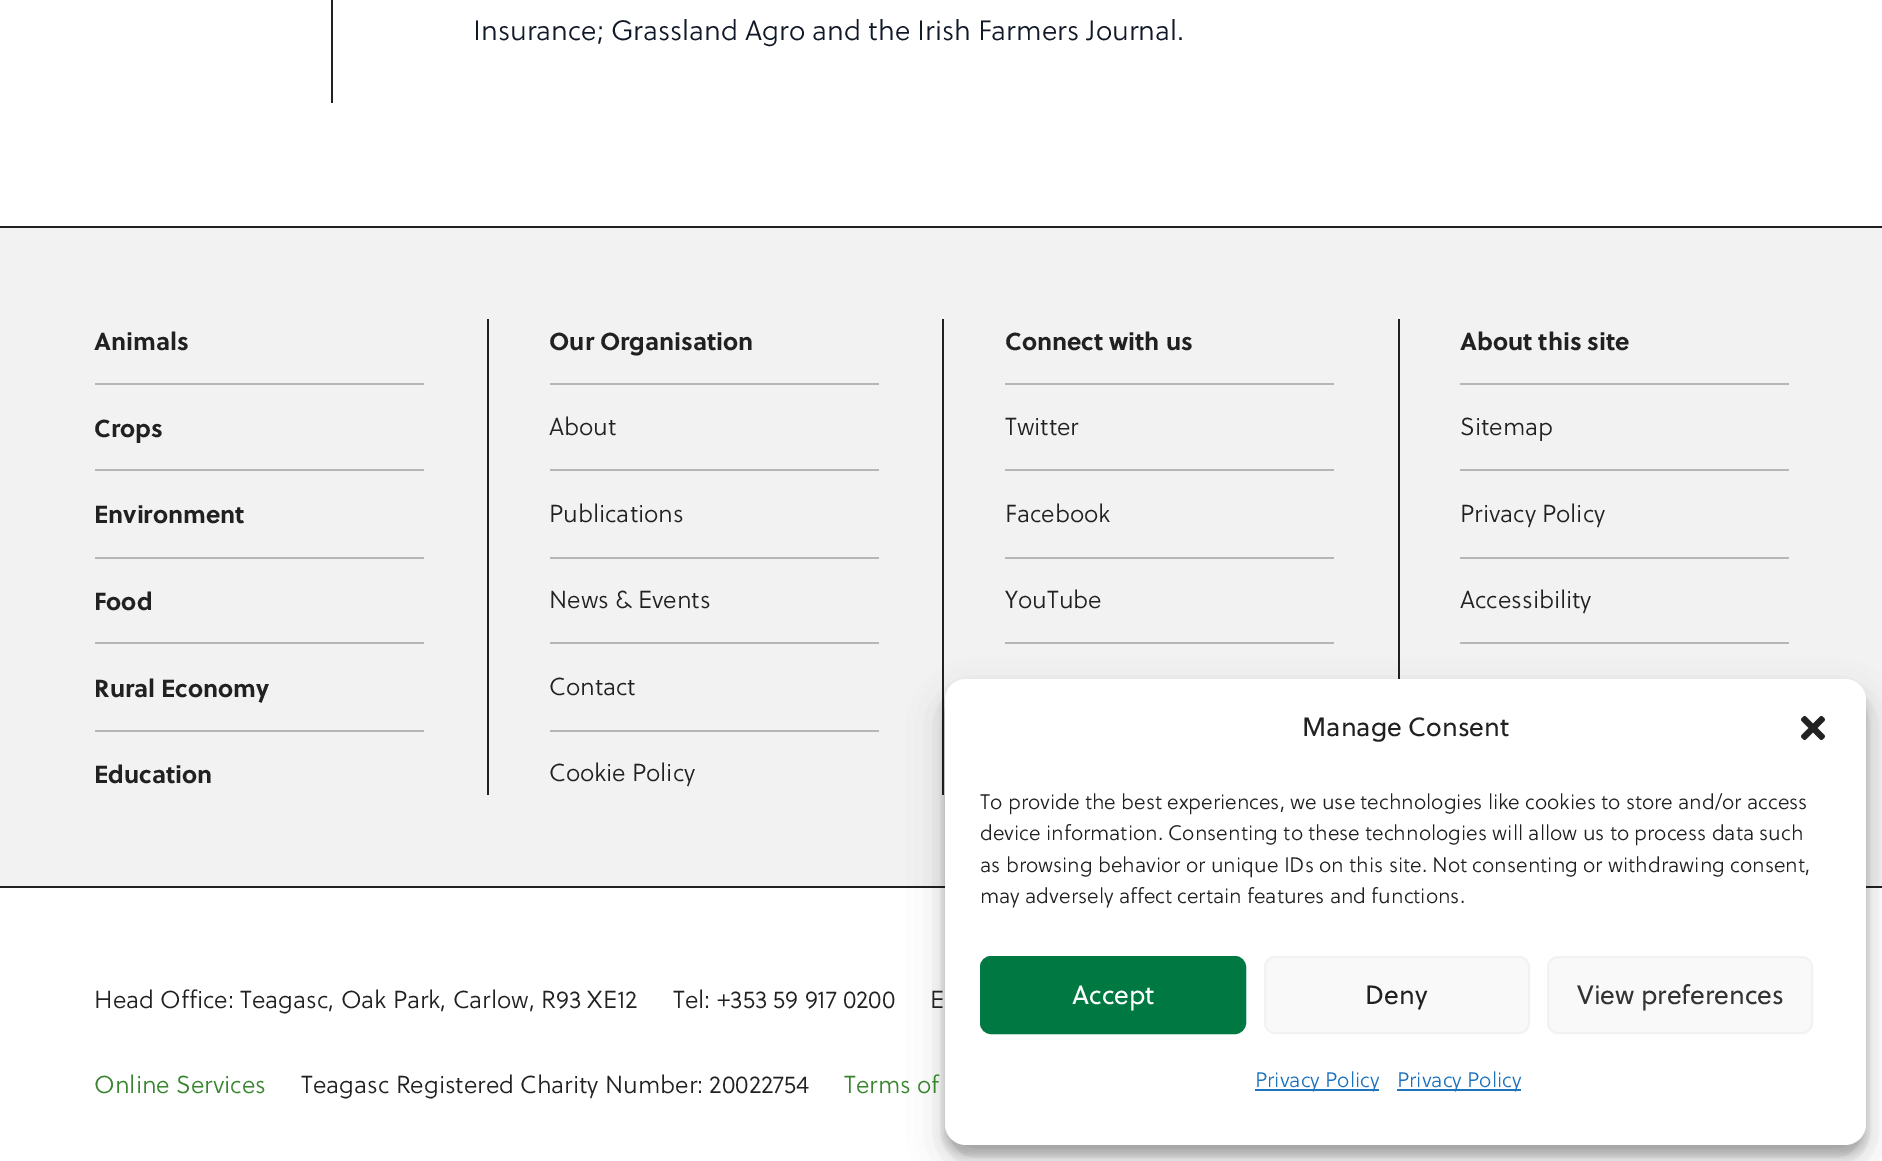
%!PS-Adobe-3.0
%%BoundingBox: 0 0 1882 1161
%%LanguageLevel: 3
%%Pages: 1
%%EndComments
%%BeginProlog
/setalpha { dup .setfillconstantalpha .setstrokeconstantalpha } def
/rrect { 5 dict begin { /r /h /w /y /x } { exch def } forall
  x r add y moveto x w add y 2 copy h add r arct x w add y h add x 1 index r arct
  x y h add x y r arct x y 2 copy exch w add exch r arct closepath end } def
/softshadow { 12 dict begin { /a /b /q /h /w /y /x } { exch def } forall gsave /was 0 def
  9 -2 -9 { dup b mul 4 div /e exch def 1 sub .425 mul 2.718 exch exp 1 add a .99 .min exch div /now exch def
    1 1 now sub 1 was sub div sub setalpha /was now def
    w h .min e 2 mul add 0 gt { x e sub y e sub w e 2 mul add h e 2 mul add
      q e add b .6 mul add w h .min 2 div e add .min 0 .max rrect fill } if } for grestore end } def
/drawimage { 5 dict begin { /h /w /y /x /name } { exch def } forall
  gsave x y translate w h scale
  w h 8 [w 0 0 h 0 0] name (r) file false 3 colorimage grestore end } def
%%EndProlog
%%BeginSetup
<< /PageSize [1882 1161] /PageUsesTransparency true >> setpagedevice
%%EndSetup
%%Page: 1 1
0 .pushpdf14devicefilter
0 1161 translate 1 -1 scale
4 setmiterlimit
1 setgray
0 0 1882 1161 rectfill
0.129 setgray
331 0 2 103 rectfill
0.949 setgray
0 228 1882 658 rectfill
0.129 setgray
0 226 1882 2 rectfill
0 886 1882 2 rectfill
0.714 setgray
95 383 329 2 rectfill
95 469 329 2 rectfill
95 557 329 2 rectfill
95 642 329 2 rectfill
95 730 329 2 rectfill
0.129 setgray
487 319 2 476 rectfill
942 319 2 476 rectfill
0.714 setgray
550 383 329 2 rectfill
550 469 329 2 rectfill
550 557 329 2 rectfill
550 642 329 2 rectfill
550 730 329 2 rectfill
0.129 setgray
1398 319 2 360 rectfill
0.714 setgray
1005 383 329 2 rectfill
1005 469 329 2 rectfill
1005 557 329 2 rectfill
1005 642 329 2 rectfill
1460 383 329 2 rectfill
1460 469 329 2 rectfill
1460 557 329 2 rectfill
1460 642 329 2 rectfill
0 setgray
945 690 921 465 21 5 0.23 softshadow
945 697 921 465 21 17.5 0.19 softshadow
1 setgray
945 679 921 466 21 rrect fill
(images/1.raw) 1801 716 24 24 drawimage
0 0.471 0.255 setrgbcolor
981 957 264 76 10 rrect gsave fill grestore
2 setlinewidth
stroke
0.976 setgray
1265 957 264 76 10 rrect gsave fill grestore
0.949 setgray
stroke
0.976 setgray
1548 957 264 76 10 rrect gsave fill grestore
0.949 setgray
stroke
0.118 0.451 0.745 setrgbcolor
1255 1089 124 2 rectfill
1397 1089 124 2 rectfill
/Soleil-Light [28 0 0 -28 0 0] selectfont
0.067 0.094 0.153 setrgbcolor
473 40 moveto (Insurance; Grassland Agro and the Irish Farmers Journal.) show
/Soleil-Bold [24.5 0 0 -24.5 0 0] selectfont
0.129 setgray
94 350 moveto (Animals) show
94 437 moveto (Crops) show
94 523 moveto (Environment) show
94 610 moveto (Food) show
94 697 moveto (Rural Economy) show
94 783 moveto (Education) show
549 350 moveto (Our Organisation) show
/Soleil-Light [24.5 0 0 -24.5 0 0] selectfont
549 435 moveto (About) show
549 522 moveto (Publications) show
549 608 moveto (News & Events) show
549 695 moveto (Contact) show
549 781 moveto (Cookie Policy) show
/Soleil-Bold [24.5 0 0 -24.5 0 0] selectfont
1005 350 moveto (Connect with us) show
/Soleil-Light [24.5 0 0 -24.5 0 0] selectfont
1005 435 moveto (Twitter) show
1005 522 moveto (Facebook) show
1005 608 moveto (YouTube) show
/Soleil-Bold [24.5 0 0 -24.5 0 0] selectfont
1460 350 moveto (About this site) show
/Soleil-Light [24.5 0 0 -24.5 0 0] selectfont
1460 435 moveto (Sitemap) show
1460 522 moveto (Privacy Policy) show
1460 608 moveto (Accessibility) show
94 1008 moveto (Head Office: Teagasc, Oak Park, Carlow, R93 XE12) show
673 1008 moveto (Tel: +353 59 917 0200) show
930 1008 moveto (E) show
0.22 0.522 0.18 setrgbcolor
94 1093 moveto (Online Services) show
0.129 setgray
301 1093 moveto (Teagasc Registered Charity Number: 20022754) show
0.22 0.522 0.18 setrgbcolor
844 1093 moveto (Terms of) show
/Soleil-Regular [26.25 0 0 -26.25 0 0] selectfont
0.129 setgray
1302 736 moveto (Manage Consent) show
/Soleil-Light [21 0 0 -21 0 0] selectfont
980 809 moveto (To provide the best experiences, we use technologies like cookies to store and/or access) show
980 840 moveto (device information. Consenting to these technologies will allow us to process data such) show
980 872 moveto (as browsing behavior or unique IDs on this site. Not consenting or withdrawing consent,) show
980 903 moveto (may adversely affect certain features and functions.) show
/Soleil-Regular [26.25 0 0 -26.25 0 0] selectfont
1 setgray
1072 1004 moveto (Accept) show
0.129 setgray
1365 1004 moveto (Deny) show
0.2 setgray
1577 1004 moveto (View preferences) show
/Soleil-Light [21 0 0 -21 0 0] selectfont
0.118 0.451 0.745 setrgbcolor
1255 1087 moveto (Privacy Policy) show
1397 1087 moveto (Privacy Policy) show
.poppdf14devicefilter showpage
%%EOF
